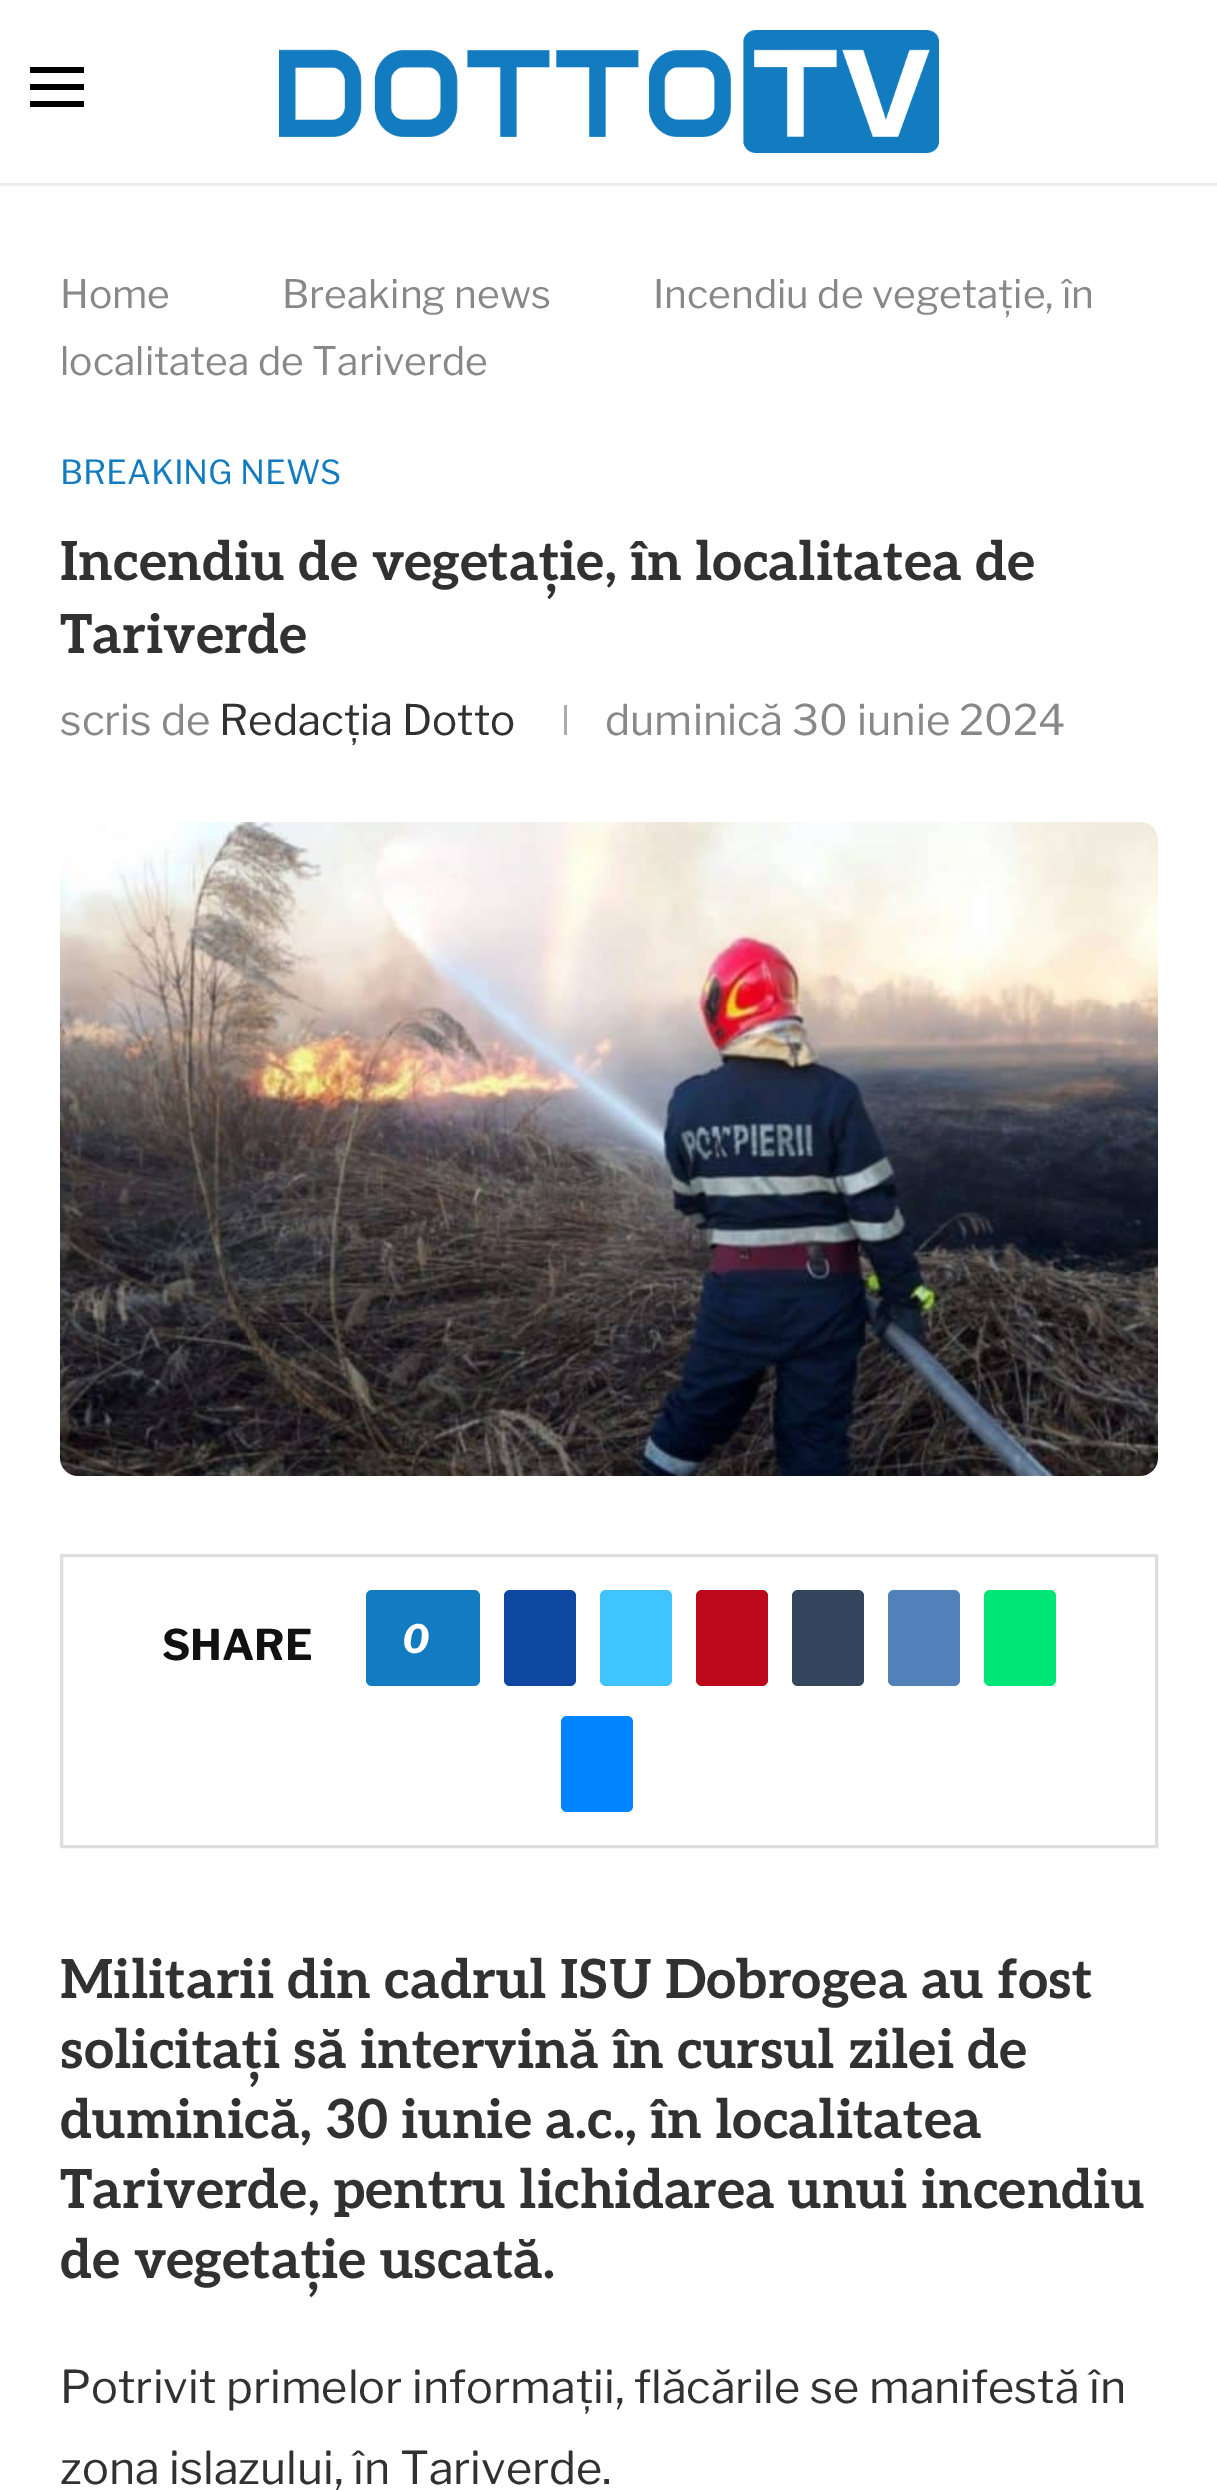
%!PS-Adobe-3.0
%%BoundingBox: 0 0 1217 2490
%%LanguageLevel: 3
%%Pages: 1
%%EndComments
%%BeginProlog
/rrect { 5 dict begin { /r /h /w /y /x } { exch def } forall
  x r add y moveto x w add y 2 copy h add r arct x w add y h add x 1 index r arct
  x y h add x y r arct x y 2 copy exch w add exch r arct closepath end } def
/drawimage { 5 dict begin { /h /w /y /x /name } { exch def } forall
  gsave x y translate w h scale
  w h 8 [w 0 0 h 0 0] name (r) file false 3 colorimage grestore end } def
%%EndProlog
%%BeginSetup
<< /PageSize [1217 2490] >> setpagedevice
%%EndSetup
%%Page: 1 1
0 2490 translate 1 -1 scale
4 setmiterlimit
1 setgray
0 0 1217 2490 rectfill
0.925 setgray
0 183 1217 3 rectfill
0 setgray
30 67 54 6 rectfill
30 84 54 6 rectfill
30 101 54 6 rectfill
(images/1.raw) 279 30 660 123 drawimage
0.675 setgray
564 705 3 30 rectfill
(images/2.raw) 60 822 1098 654 drawimage
0.871 setgray
3 setlinewidth
61.5 1555.5 1095 291 rectstroke
0.075 0.482 0.753 setrgbcolor
366 1590 114 96 6 rrect fill
0.051 0.278 0.631 setrgbcolor
504 1590 72 96 6 rrect fill
0.251 0.769 1 setrgbcolor
600 1590 72 96 6 rrect fill
0.741 0.031 0.11 setrgbcolor
696 1590 72 96 6 rrect fill
0.204 0.275 0.365 setrgbcolor
792 1590 72 96 6 rrect fill
0.318 0.506 0.722 setrgbcolor
888 1590 72 96 6 rrect fill
0 0.902 0.463 setrgbcolor
984 1590 72 96 6 rrect fill
0 0.518 1 setrgbcolor
561 1716 72 96 6 rrect fill
/LibreFranklin-Regular [39 0 0 -39 0 0] selectfont
0.533 setgray
60 308 moveto (Home) show
282 308 moveto (Breaking news) show
653 308 moveto (Incendiu de vegetație, în) show
60 375 moveto (localitatea de Tariverde) show
/LibreFranklin-Regular [33 0 0 -33 0 0] selectfont
0.075 0.482 0.753 setrgbcolor
60 484 moveto (BREAKING NEWS) show
/Aleo-Bold [54 0 0 -54 0 0] selectfont
0.192 setgray
60 580 moveto (Incendiu de vegetație, în localitatea de) show
60 653 moveto (Tariverde) show
/LibreFranklin-Regular [42 0 0 -42 0 0] selectfont
0.533 setgray
60 735 moveto (scris de) show
0.192 setgray
219 735 moveto (Redacția Dotto) show
0.533 setgray
605 735 moveto (duminică 30 iunie 2024) show
/LibreFranklin-Bold [42 0 0 -42 0 0] selectfont
0.067 setgray
162 1660 moveto (SHARE) show
/LibreFranklin-BoldItalic [39 0 0 -39 0 0] selectfont
1 setgray
402 1653 moveto (0) show
/Aleo-Bold [54 0 0 -54 0 0] selectfont
0.192 setgray
60 1998 moveto (Militarii din cadrul ISU Dobrogea au fost) show
60 2068 moveto (solicitați să intervină în cursul zilei de) show
60 2138 moveto (duminică, 30 iunie a.c., în localitatea) show
60 2208 moveto (Tariverde, pentru lichidarea unui incendiu) show
60 2278 moveto (de vegetație uscată.) show
/LibreFranklin-Regular [45 0 0 -45 0 0] selectfont
60 2403 moveto (Potrivit primelor informații, flăcările se manifestă în) show
60 2484 moveto (zona islazului, în Tariverde.) show
showpage
%%EOF
